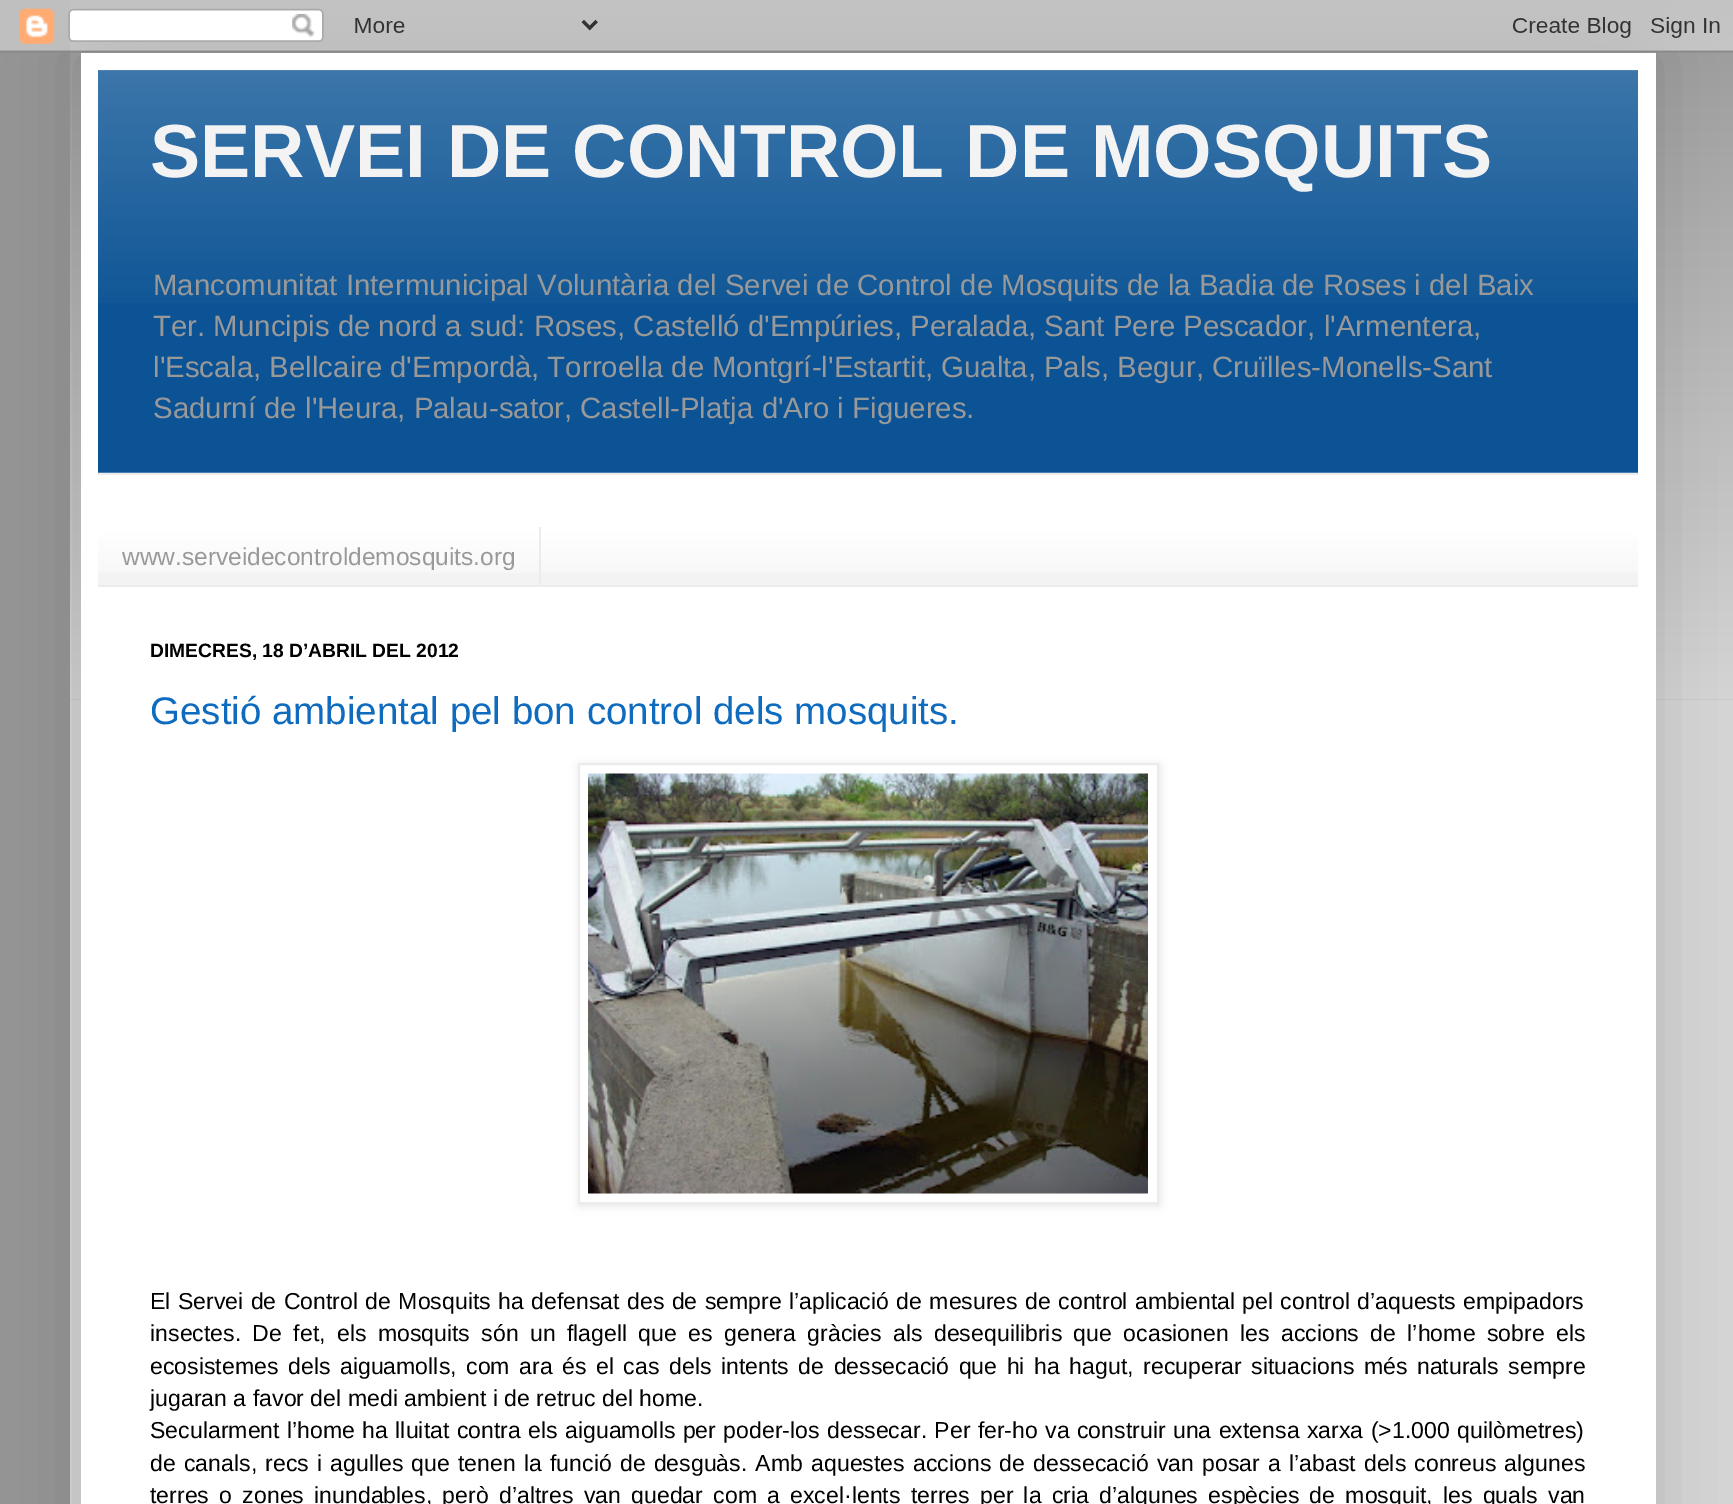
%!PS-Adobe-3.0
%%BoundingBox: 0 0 1733 1504
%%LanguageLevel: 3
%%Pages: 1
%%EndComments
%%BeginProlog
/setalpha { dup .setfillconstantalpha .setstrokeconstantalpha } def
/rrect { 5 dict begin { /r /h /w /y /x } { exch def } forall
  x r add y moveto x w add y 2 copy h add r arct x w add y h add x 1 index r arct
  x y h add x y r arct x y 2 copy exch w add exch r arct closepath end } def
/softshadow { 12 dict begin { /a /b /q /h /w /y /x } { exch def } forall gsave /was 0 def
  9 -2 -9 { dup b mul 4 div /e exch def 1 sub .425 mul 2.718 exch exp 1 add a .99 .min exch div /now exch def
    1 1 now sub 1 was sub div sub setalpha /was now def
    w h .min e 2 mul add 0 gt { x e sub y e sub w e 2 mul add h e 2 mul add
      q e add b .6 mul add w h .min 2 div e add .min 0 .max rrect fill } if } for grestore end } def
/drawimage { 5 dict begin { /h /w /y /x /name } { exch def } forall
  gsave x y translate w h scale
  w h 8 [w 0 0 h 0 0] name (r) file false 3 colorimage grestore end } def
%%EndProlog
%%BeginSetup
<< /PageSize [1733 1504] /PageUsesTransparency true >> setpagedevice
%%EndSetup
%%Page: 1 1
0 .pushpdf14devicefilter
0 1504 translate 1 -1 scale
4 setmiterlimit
0.584 setgray
0 0 1733 1504 rectfill
(images/2.raw) 70 0 1663 700 drawimage
0.835 setgray
70 700 1663 804 rectfill
0 setgray
81 53 1575 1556 0 35 0.15 softshadow
(images/1.raw) 0 0 1733 53 drawimage
1 setgray
81 53 1575 1451 rectfill
0.043 0.325 0.58 setrgbcolor
98 70 1540 402 rectfill
(images/3.raw) 98 70 1540 233 drawimage
0.282 0.494 0.686 setrgbcolor
98 472 1540 1 rectfill
0.925 setgray
98 473 1540 2 rectfill
0.953 setgray
98 527 1540 58 rectfill
(images/4.raw) 98 527 1540 46 drawimage
0.925 setgray
98 585 1540 2 rectfill
539 527 2 58 rectfill
0 setgray
579 765 581 441 0 4.5 0.1 softshadow
1 setgray
newpath 579 764 moveto 1158 764 lineto 1158 1203 lineto 579 1203 lineto closepath gsave fill grestore
0.925 setgray
2 setlinewidth
stroke
(images/5.raw) 588 773 560 421 drawimage
/LiberationSans-Bold [75.25 0 0 -75.25 0 0] selectfont
0.953 setgray
150 177 moveto (SERVEI DE CONTROL DE MOSQUITS) show
/LiberationSans-Regular [29.4 0 0 -29.4 0 0] selectfont
0.6 setgray
153 295 moveto (Mancomunitat Intermunicipal Voluntària del Servei de Control de Mosquits de la Badia de Roses i del Baix) show
153 336 moveto (Ter. Muncipis de nord a sud: Roses, Castelló d'Empúries, Peralada, Sant Pere Pescador, l'Armentera,) show
153 377 moveto -0.25 0 32 (l'Escala, Bellcaire d'Empordà, Torroella de Montgrí-l'Estartit, Gualta, Pals, Begur, Cruïlles-Monells-Sant) widthshow
153 418 moveto (Sadurní de l'Heura, Palau-sator, Castell-Platja d'Aro i Figueres.) show
/LiberationSans-Regular [24.5 0 0 -24.5 0 0] selectfont
122 565 moveto (www.serveidecontroldemosquits.org) show
/LiberationSans-Bold [19.25 0 0 -19.25 0 0] selectfont
0 setgray
150 657 moveto (DIMECRES, 18 D’ABRIL DEL 2012) show
/LiberationSans-Regular [38.5 0 0 -38.5 0 0] selectfont
0.059 0.42 0.745 setrgbcolor
150 724 moveto (Gestió ambiental pel bon control dels mosquits.) show
/LiberationSans-Regular [23.1 0 0 -23.1 0 0] selectfont
0 setgray
150 1309 moveto 0.9 0 32 (El Servei de Control de Mosquits ha defensat des de sempre l’aplicació de mesures de control ambiental pel control d’aquests empipadors) widthshow
150 1341 moveto 4.9 0 32 (insectes. De fet, els mosquits són un flagell que es genera gràcies als desequilibris que ocasionen les accions de l’home sobre els) widthshow
150 1374 moveto 3.1 0 32 (ecosistemes dels aiguamolls, com ara és el cas dels intents de dessecació que hi ha hagut, recuperar situacions més naturals sempre) widthshow
150 1406 moveto (jugaran a favor del medi ambient i de retruc del home.) show
150 1438 moveto 0.9 0 32 (Secularment l’home ha lluitat contra els aiguamolls per poder-los dessecar. Per fer-ho va construir una extensa xarxa \(>1.000 quilòmetres\)) widthshow
150 1471 moveto 1.7 0 32 (de canals, recs i agulles que tenen la funció de desguàs. Amb aquestes accions de dessecació van posar a l’abast dels conreus algunes) widthshow
150 1503 moveto 3.8 0 32 (terres o zones inundables, però d’altres van quedar com a excel·lents terres per la cria d’algunes espècies de mosquit, les quals van) widthshow
.poppdf14devicefilter showpage
%%EOF
